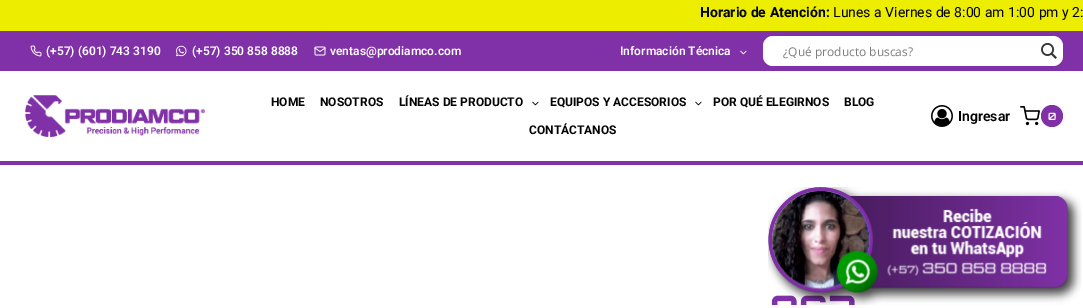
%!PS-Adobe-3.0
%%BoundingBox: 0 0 1083 308
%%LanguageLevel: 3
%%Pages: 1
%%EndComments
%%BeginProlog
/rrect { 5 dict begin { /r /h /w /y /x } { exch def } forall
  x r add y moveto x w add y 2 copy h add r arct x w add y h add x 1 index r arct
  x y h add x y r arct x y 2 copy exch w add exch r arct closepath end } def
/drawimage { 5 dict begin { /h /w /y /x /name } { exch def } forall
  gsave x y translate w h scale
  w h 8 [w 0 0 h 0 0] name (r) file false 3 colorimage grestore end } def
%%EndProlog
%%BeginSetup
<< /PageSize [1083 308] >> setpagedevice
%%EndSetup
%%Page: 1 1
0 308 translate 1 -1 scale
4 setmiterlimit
1 setgray
0 0 1083 308 rectfill
0.929 0.929 0 setrgbcolor
0 0 1083 31 rectfill
0.502 0.192 0.655 setrgbcolor
0 31 1083 40 rectfill
(images/1.raw) 30 45 12 12 drawimage
(images/2.raw) 176 45 11 12 drawimage
(images/3.raw) 314 46 12 10 drawimage
(images/4.raw) 740 50 7 5 drawimage
1 setgray
763 36 300 30 10 rrect fill
(images/5.raw) 1041 43 16 16 drawimage
0.502 0.192 0.655 setrgbcolor
0 161 1083 4 rectfill
(images/6.raw) 25 95 180 42 drawimage
(images/7.raw) 532 101 7 5 drawimage
(images/7.raw) 695 101 7 5 drawimage
(images/8.raw) 931 105 22 22 drawimage
(images/9.raw) 1020 106 20 20 drawimage
newpath 1052 116 11 0 360 arc closepath fill
(images/11.raw) 768 187 313 118 drawimage
(images/10.raw) 768 187 314 118 drawimage
/Roboto-Bold [14 0 0 -14 0 0] selectfont
0 setgray
700 17 moveto (Horario de Atención:) show
/Roboto-Regular [14 0 0 -14 0 0] selectfont
833 17 moveto (Lunes a Viernes de 8:00 am 1:00 pm y 2:) show
/Roboto-SemiBold [12 0 0 -12 0 0] selectfont
1 setgray
46 55 moveto (\(+57\) \(601\) 743 3190) show
192 55 moveto (\(+57\) 350 858 8888) show
330 55 moveto (ventas@prodiamco.com) show
620 55 moveto (Información Técnica) show
/OpenSans-Regular [12 0 0 -12 0 0] selectfont
0.49 setgray
783 56 moveto (¿Qué producto buscas?) show
/Roboto-Bold [12 0 0 -12 0 0] selectfont
0 setgray
271 106 moveto (HOME) show
320 106 moveto (NOSOTROS) show
399 106 moveto (LÍNEAS DE PRODUCTO) show
550 106 moveto (EQUIPOS Y ACCESORIOS) show
713 106 moveto (POR QUÉ ELEGIRNOS) show
844 106 moveto (BLOG) show
529 134 moveto (CONTÁCTANOS) show
/Roboto-SemiBold [14 0 0 -14 0 0] selectfont
958 121 moveto (Ingresar) show
/Orbitron-SemiBold [10 0 0 -10 0 0] selectfont
1 setgray
1048 120 moveto (0) show
showpage
%%EOF
